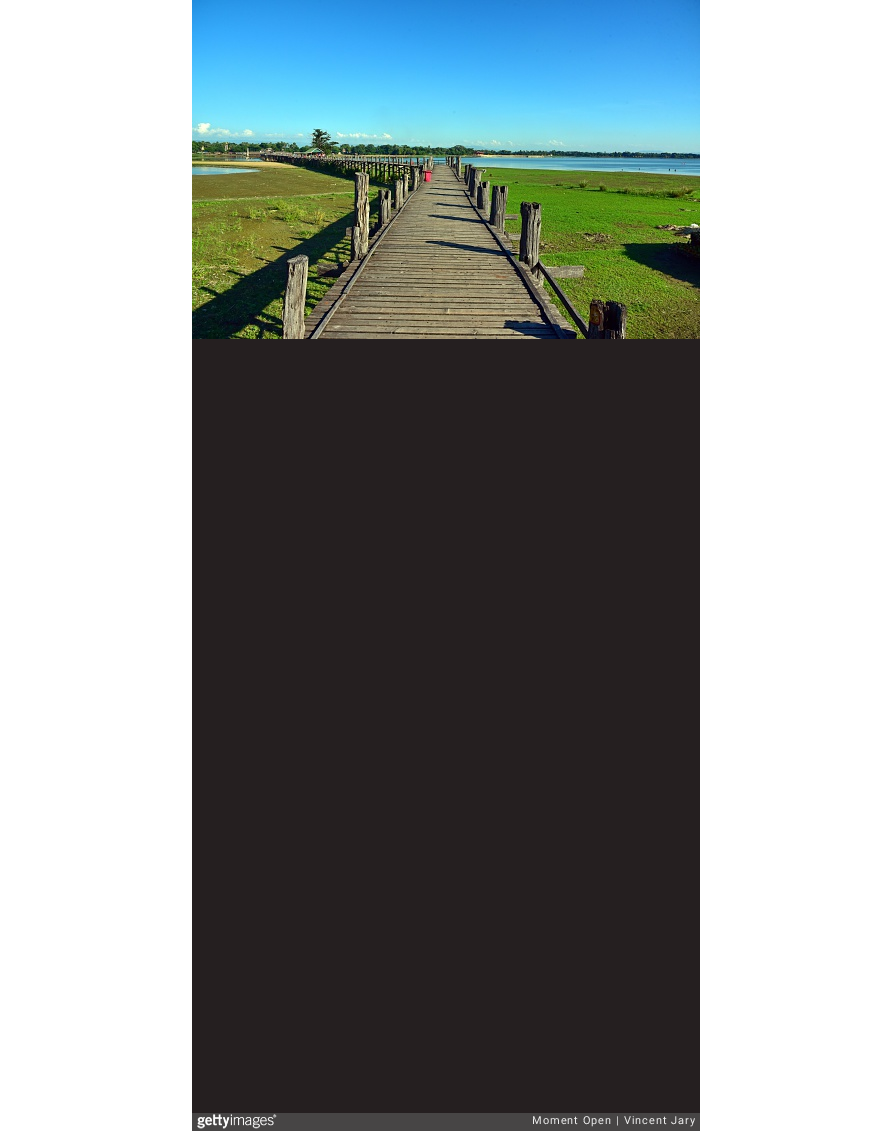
%!PS-Adobe-3.0
%%BoundingBox: 0 0 892 1131
%%LanguageLevel: 3
%%Pages: 1
%%EndComments
%%BeginProlog
/drawimage { 5 dict begin { /h /w /y /x /name } { exch def } forall
  gsave x y translate w h scale
  w h 8 [w 0 0 h 0 0] name (r) file false 3 colorimage grestore end } def
%%EndProlog
%%BeginSetup
<< /PageSize [892 1131] >> setpagedevice
%%EndSetup
%%Page: 1 1
0 1131 translate 1 -1 scale
4 setmiterlimit
1 setgray
0 0 892 1131 rectfill
0.145 0.122 0.125 setrgbcolor
192 339 508 774 rectfill
(images/1.raw) 192 0 508 339 drawimage
0.278 0.271 0.271 setrgbcolor
192 1113 508 18 rectfill
(images/2.raw) 197 1114 80 15 drawimage
/Roboto-Regular [11 0 0 -11 0 0] selectfont
0.933 setgray
532 1124 moveto 1 0 (Moment Open | Vincent Jary) ashow
showpage
%%EOF
